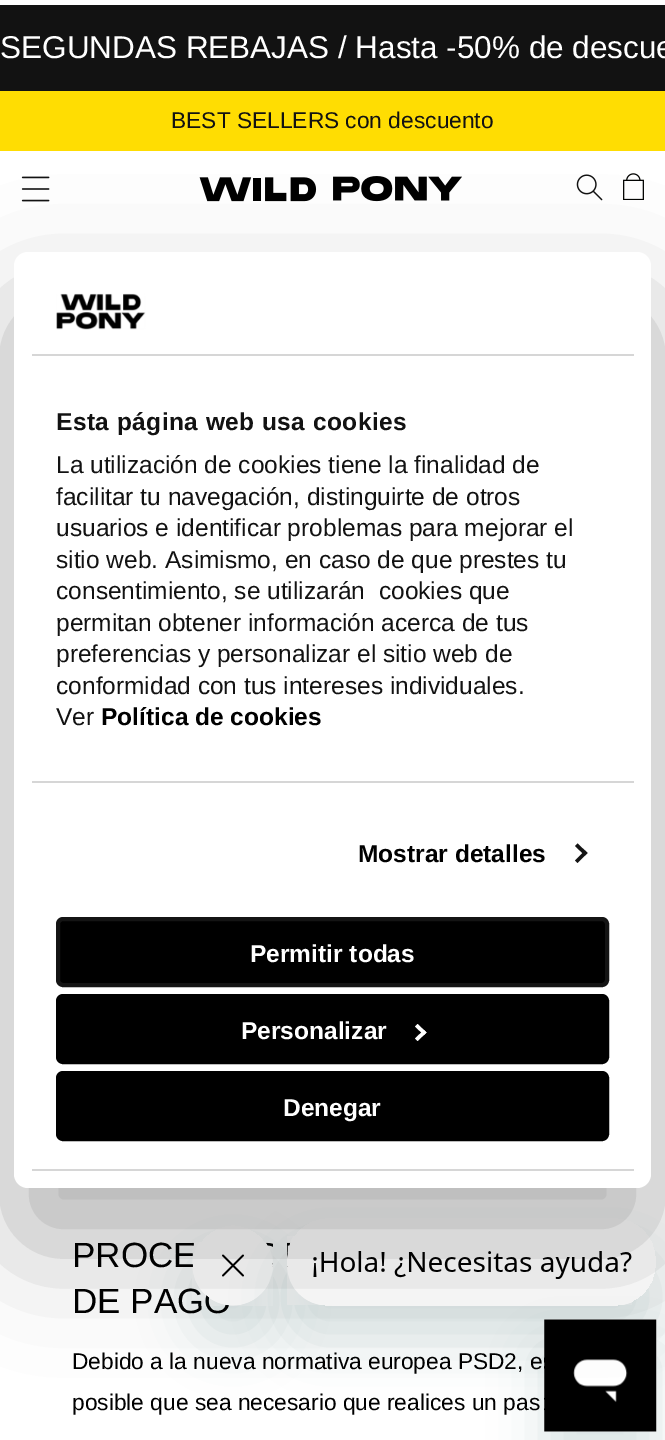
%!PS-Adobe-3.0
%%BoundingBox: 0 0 665 1440
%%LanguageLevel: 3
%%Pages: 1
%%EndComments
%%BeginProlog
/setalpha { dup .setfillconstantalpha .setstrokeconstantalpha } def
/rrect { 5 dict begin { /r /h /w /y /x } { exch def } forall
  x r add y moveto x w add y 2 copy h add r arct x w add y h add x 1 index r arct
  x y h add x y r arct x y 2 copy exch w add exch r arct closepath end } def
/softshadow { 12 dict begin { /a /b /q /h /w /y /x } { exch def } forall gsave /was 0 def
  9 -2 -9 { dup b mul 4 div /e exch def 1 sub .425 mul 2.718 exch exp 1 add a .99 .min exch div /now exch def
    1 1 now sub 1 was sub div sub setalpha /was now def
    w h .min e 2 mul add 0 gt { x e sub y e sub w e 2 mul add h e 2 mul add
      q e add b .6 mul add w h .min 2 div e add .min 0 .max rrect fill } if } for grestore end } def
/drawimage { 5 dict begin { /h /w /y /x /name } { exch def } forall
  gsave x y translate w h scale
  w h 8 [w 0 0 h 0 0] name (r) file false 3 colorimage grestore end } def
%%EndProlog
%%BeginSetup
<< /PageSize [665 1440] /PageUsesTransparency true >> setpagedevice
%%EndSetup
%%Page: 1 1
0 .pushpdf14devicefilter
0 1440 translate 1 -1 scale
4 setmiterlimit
1 setgray
0 0 665 1440 rectfill
0.071 setgray
0 5 665 86 rectfill
1 0.867 0.008 setrgbcolor
0 91 665 60 rectfill
(images/1.raw) 21 176 29 26 drawimage
(images/2.raw) 199 176 263 26 drawimage
(images/3.raw) 576 174 27 27 drawimage
(images/4.raw) 623 173 21 27 drawimage
gsave
newpath 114 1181 moveto 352 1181 lineto 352 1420 lineto 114 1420 lineto closepath 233 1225 moveto 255 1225 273 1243 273 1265 curveto 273 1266 lineto 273 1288 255 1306 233 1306 curveto 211 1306 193 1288 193 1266 curveto 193 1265 lineto 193 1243 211 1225 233 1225 curveto closepath eoclip newpath
0.09 0.286 0.302 setrgbcolor
193 1260 80 81 40 26 0.15 softshadow
grestore
/LiberationSans-Regular [31.5 0 0 -31.5 0 0] selectfont
1 setgray
0 58 moveto (SEGUNDAS REBAJAS / Hasta -50% de descue) show
/LiberationSans-Regular [22.75 0 0 -22.75 0 0] selectfont
0.071 setgray
171 128 moveto (BEST SELLERS con descuento) show
/LiberationSans-Regular [35 0 0 -35 0 0] selectfont
0 setgray
72 1267 moveto (PROCE) show
72 1313 moveto (DE PAGO) show
(images/7.raw) 192 1242 81 64 drawimage
gsave
newpath 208 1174 moveto 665 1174 lineto 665 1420 lineto 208 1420 lineto closepath 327 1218 moveto 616 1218 lineto 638 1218 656 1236 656 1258 curveto 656 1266 lineto 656 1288 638 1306 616 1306 curveto 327 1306 lineto 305 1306 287 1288 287 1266 curveto 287 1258 lineto 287 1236 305 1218 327 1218 curveto closepath eoclip newpath
0.09 0.286 0.302 setrgbcolor
287 1253 369 88 40 26 0.15 softshadow
grestore
(images/6.raw) 287 1236 345 69 drawimage
0.09 0.286 0.302 setrgbcolor
544 1355 112 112 0 26 0.15 softshadow
(images/8.raw) 544 1319 113 113 drawimage
0 setgray
14 308 637 936 14 59.5 0.3 softshadow
1 setgray
14 252 637 936 14 rrect fill
0 setgray
58 996 549 66 5 rrect gsave fill grestore
4 setlinewidth
stroke
1 setgray
newpath 417.5 1024 moveto 426.5 1032.5 lineto 424 1035 lineto 415 1026.5 lineto closepath fill
newpath 424 1030 moveto 426.5 1032.5 lineto 417.5 1041 lineto 415 1038.5 lineto closepath fill
0 setgray
58 1073 549 66 5 rrect gsave fill grestore
stroke
/LiberationSans-Bold [24.5 0 0 -24.5 0 0] selectfont
1 setgray
283 1116 moveto (Denegar) show
241 1039 moveto (Personalizar) show
0 setgray
58 919 549 66 5 rrect gsave fill grestore
0.078 setgray
stroke
1 setgray
250 962 moveto (Permitir todas) show
0.839 setgray
32 1169 602 2 rectfill
0.078 setgray
newpath 577.5 843.5 moveto 587.5 853 lineto 585 855.5 lineto 575 846 lineto closepath fill
newpath 585 850.5 moveto 587.5 853 lineto 577.5 863 lineto 575 860.5 lineto closepath fill
0 setgray
101 725 moveto (Política de cookies) show
/LiberationSans-Regular [24.5 0 0 -24.5 0 0] selectfont
0.071 setgray
56 725 moveto (Ver) show
56 694 moveto (conformidad con tus intereses individuales.) show
56 662 moveto (preferencias y personalizar el sitio web de) show
56 631 moveto (permitan obtener información acerca de tus) show
56 599 moveto (consentimiento, se utilizarán  cookies que) show
56 568 moveto (sitio web. Asimismo, en caso de que prestes tu) show
56 536 moveto (usuarios e identificar problemas para mejorar el) show
56 505 moveto (facilitar tu navegación, distinguirte de otros) show
56 473 moveto (La utilización de cookies tiene la finalidad de) show
/LiberationSans-Bold [24.5 0 0 -24.5 0 0] selectfont
56 430 moveto 0.45 0 (Esta página web usa cookies) ashow
0.839 setgray
32 781 602 2 rectfill
0 setgray
358 862 moveto (Mostrar detalles) show
(images/5.raw) 56 293 90 37 drawimage
0.839 setgray
32 354 602 2 rectfill
/LiberationSans-Regular [22.75 0 0 -22.75 0 0] selectfont
0 setgray
72 1369 moveto (Debido a la nueva normativa europea PSD2, e) show
72 1410 moveto (posible que sea necesario que realices un pas) show
.poppdf14devicefilter showpage
%%EOF
